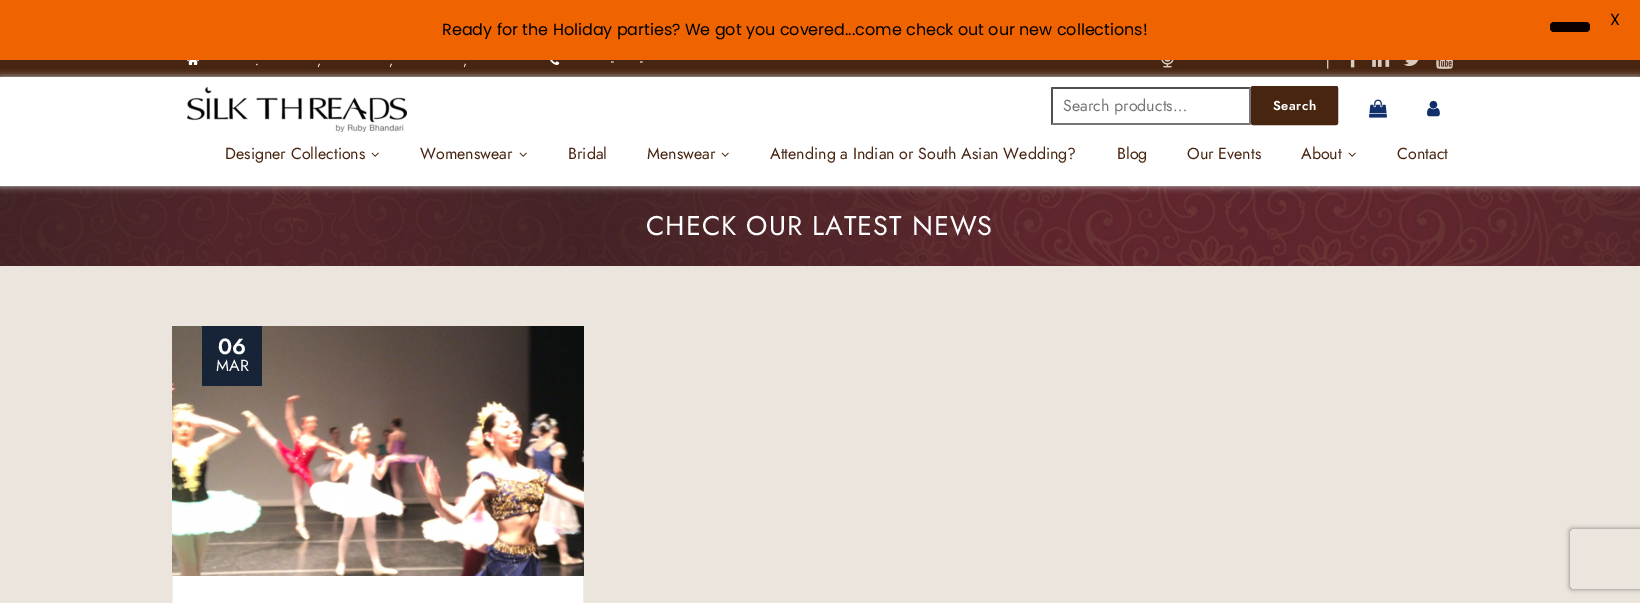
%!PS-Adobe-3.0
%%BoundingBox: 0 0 1640 603
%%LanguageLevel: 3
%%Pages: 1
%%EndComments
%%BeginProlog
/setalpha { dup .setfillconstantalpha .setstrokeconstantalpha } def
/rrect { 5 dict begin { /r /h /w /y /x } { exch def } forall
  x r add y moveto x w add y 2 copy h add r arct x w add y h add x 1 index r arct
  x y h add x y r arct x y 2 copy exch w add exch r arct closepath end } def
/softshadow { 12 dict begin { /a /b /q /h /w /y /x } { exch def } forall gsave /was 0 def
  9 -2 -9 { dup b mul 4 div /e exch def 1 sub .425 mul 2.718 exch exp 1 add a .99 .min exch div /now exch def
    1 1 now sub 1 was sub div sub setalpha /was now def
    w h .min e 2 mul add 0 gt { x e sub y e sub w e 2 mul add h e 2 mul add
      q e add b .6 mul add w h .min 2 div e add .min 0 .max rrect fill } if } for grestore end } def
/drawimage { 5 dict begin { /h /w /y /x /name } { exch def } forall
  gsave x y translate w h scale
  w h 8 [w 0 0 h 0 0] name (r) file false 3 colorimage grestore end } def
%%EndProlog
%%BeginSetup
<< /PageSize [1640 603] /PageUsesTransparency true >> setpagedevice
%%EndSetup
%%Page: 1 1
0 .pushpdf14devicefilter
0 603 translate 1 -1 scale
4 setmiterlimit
0.925 0.898 0.867 setrgbcolor
0 0 1640 603 rectfill
0.282 0.145 0.067 setrgbcolor
0 60 1640 16 rectfill
0.267 0.137 0.063 setrgbcolor
0 76 1640 1 rectfill
(images/1.raw) 187 60 12 5 drawimage
(images/2.raw) 550 60 10 5 drawimage
(images/3.raw) 1161 60 13 8 drawimage
(images/4.raw) 1350 60 5 8 drawimage
(images/5.raw) 1372 60 18 7 drawimage
(images/6.raw) 1403 60 16 6 drawimage
(images/7.raw) 1436 60 17 9 drawimage
(images/12.raw) 0 186 1640 80 drawimage
0.816 setgray
0 77 1640 109 0 3.5 1 softshadow
1 setgray
0 77 1640 109 rectfill
(images/8.raw) 187 87 220 45 drawimage
0.31 setgray
newpath 1051 87 moveto 1251 87 lineto 1249 89 lineto 1053 89 lineto closepath fill
0.463 setgray
newpath 1251 87 moveto 1251 125 lineto 1249 123 lineto 1249 89 lineto closepath fill
newpath 1251 125 moveto 1051 125 lineto 1053 123 lineto 1249 123 lineto closepath fill
0.31 setgray
newpath 1051 125 moveto 1051 87 lineto 1053 89 lineto 1053 123 lineto closepath fill
0.282 0.145 0.067 setrgbcolor
1252 87 85 37 1 rrect gsave fill grestore
2 setlinewidth
stroke
(images/9.raw) 1369 99 18 19 drawimage
(images/10.raw) 1427 100 13 17 drawimage
(images/11.raw) 371 152 8 5 drawimage
(images/11.raw) 519 152 8 5 drawimage
(images/11.raw) 721 152 8 5 drawimage
(images/11.raw) 1348 152 8 5 drawimage
(images/13.raw) 172 326 412 250 drawimage
0.09 0.137 0.216 setrgbcolor
202 326 60 60 rectfill
1 setgray
173 576 410 27 rectfill
0.929 setgray
newpath 584 576 moveto 584 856 lineto 583 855 lineto 583 576 lineto closepath fill
newpath 172 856 moveto 172 576 lineto 173 576 lineto 173 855 lineto closepath fill
gsave
newpath 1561 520 moveto 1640 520 lineto 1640 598 lineto 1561 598 lineto closepath 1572 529 moveto 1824 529 lineto 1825 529 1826 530 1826 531 curveto 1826 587 lineto 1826 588 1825 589 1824 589 curveto 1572 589 lineto 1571 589 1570 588 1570 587 curveto 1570 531 lineto 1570 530 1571 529 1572 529 curveto closepath eoclip newpath
0.502 setgray
1570 529 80 60 2 2.5 1 softshadow
grestore
/Jost-Regular [13 0 0 -13 0 0] selectfont
1 setgray
611 65 moveto 1 0 (-) ashow
640 65 moveto 1 0 (-) ashow
255 65 moveto 1 0 (.) ashow
317 65 moveto 1 0 (,) ashow
389 65 moveto 1 0 (,) ashow
463 65 moveto 1 0 (,) ashow
1326 66 moveto (|) show
0.937 0.388 0 setrgbcolor
0 0 1640 60 rectfill
/Poppins-Regular [16 0 0 -16 0 0] selectfont
0 setgray
1610 25 moveto (X) show
0.039 0 0 setrgbcolor
1550 22 40 10 4 rrect fill
0 setgray
442 35 moveto (Ready for the Holiday parties? We got you covered...come check out our new collections!) show
/Jost-Regular [16 0 0 -16 0 0] selectfont
0.459 setgray
1063 111 moveto (Search products…) show
/Jost-SemiBold [13 0 0 -13 0 0] selectfont
1 setgray
1273 110 moveto 0.5 0 (Search) ashow
/Jost-Regular [16 0 0 -16 0 0] selectfont
0.282 0.145 0.067 setrgbcolor
225 159 moveto (Designer Collections) show
420 159 moveto (Womenswear) show
568 159 moveto (Bridal) show
647 159 moveto (Menswear) show
770 159 moveto (Attending a Indian or South Asian Wedding?) show
1117 159 moveto (Blog) show
1187 159 moveto (Our Events) show
1301 159 moveto (About) show
1397 159 moveto (Contact) show
/Jost-Regular [27 0 0 -27 0 0] selectfont
1 setgray
646 235 moveto 1 0 (CHECK OUR LATEST NEWS) ashow
/Jost-SemiBold [22 0 0 -22 0 0] selectfont
218 354 moveto (06) show
/Jost-Regular [16 0 0 -16 0 0] selectfont
216 371 moveto (MAR) show
.poppdf14devicefilter showpage
%%EOF
